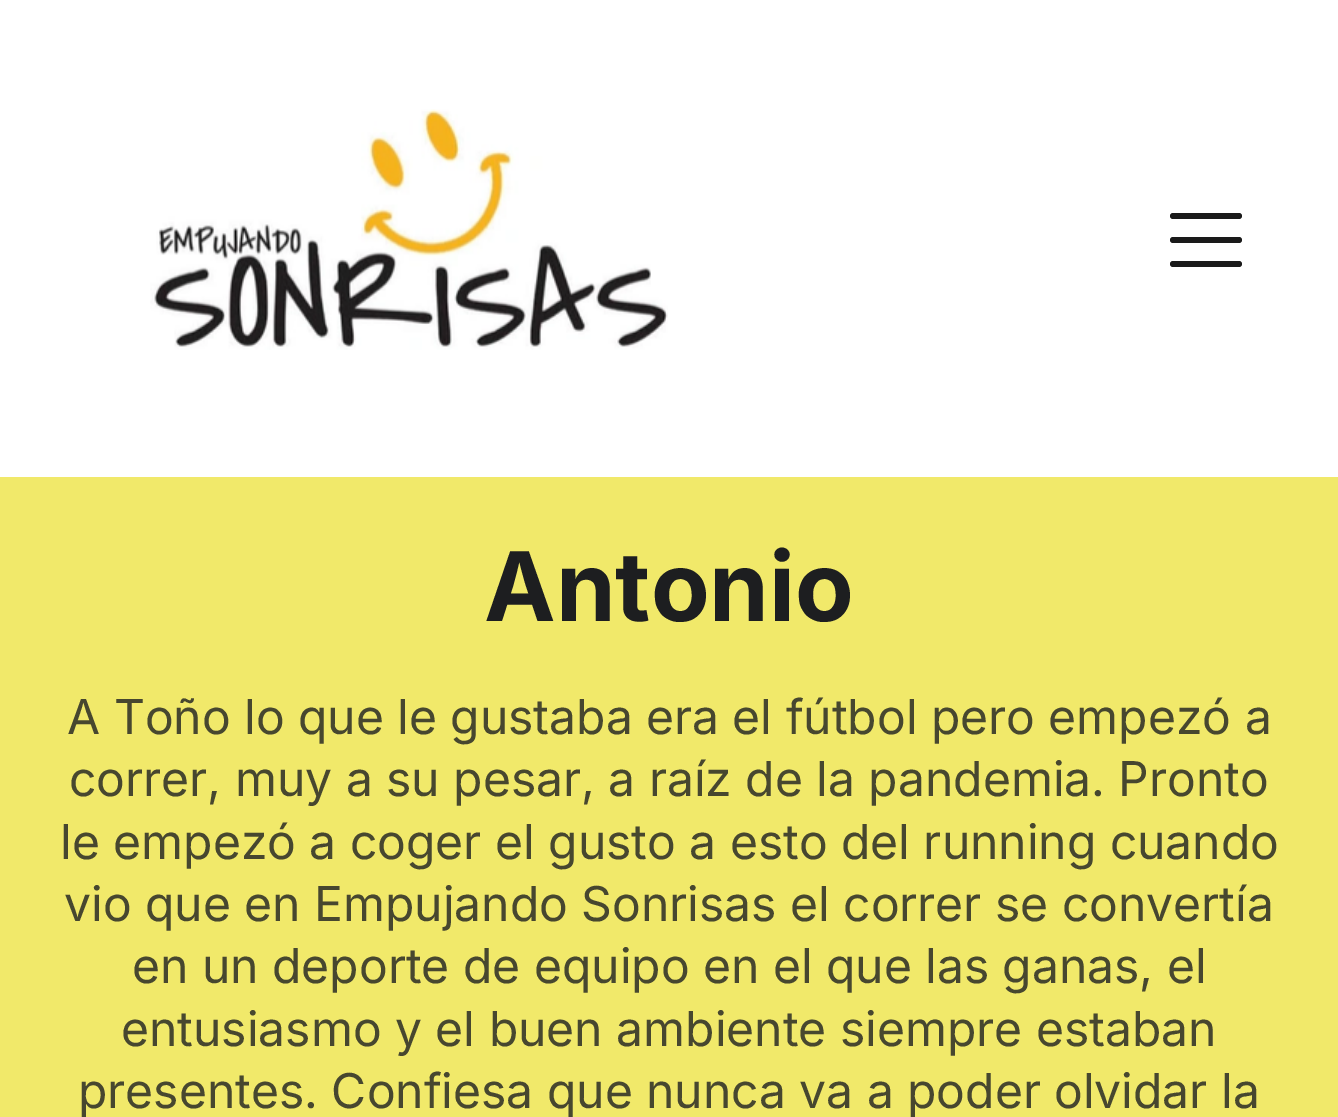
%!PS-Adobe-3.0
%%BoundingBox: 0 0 1338 1117
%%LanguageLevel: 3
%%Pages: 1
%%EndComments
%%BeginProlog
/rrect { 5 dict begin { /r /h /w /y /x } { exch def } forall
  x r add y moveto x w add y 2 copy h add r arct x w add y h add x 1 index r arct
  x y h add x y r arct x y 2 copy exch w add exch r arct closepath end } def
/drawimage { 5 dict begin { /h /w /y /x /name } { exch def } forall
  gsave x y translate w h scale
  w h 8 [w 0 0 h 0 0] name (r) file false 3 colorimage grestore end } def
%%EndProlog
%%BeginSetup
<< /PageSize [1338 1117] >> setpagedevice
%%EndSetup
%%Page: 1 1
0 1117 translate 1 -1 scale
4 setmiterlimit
1 setgray
0 0 1338 1117 rectfill
(images/1.raw) 150 109 518 241 drawimage
0.102 setgray
1170 213 72 6 3 rrect fill
1170 237 72 6 3 rrect fill
1170 261 72 6 3 rrect fill
0.945 0.914 0.416 setrgbcolor
0 477 1338 640 rectfill
/Inter-Bold [96 0 0 -96 0 0] selectfont
0.114 0.118 0.125 setrgbcolor
484 621 moveto (Antonio) show
/Inter-Regular [48 0 0 -48 0 0] selectfont
0.278 0.278 0.184 setrgbcolor
67 734 moveto (A Toño lo que le gustaba era el fútbol pero empezó a) show
69 796 moveto (correr, muy a su pesar, a raíz de la pandemia. Pronto) show
60 859 moveto (le empezó a coger el gusto a esto del running cuando) show
64 921 moveto (vio que en Empujando Sonrisas el correr se convertía) show
132 983 moveto (en un deporte de equipo en el que las ganas, el) show
121 1046 moveto (entusiasmo y el buen ambiente siempre estaban) show
78 1108 moveto (presentes. Confiesa que nunca va a poder olvidar la) show
showpage
%%EOF
